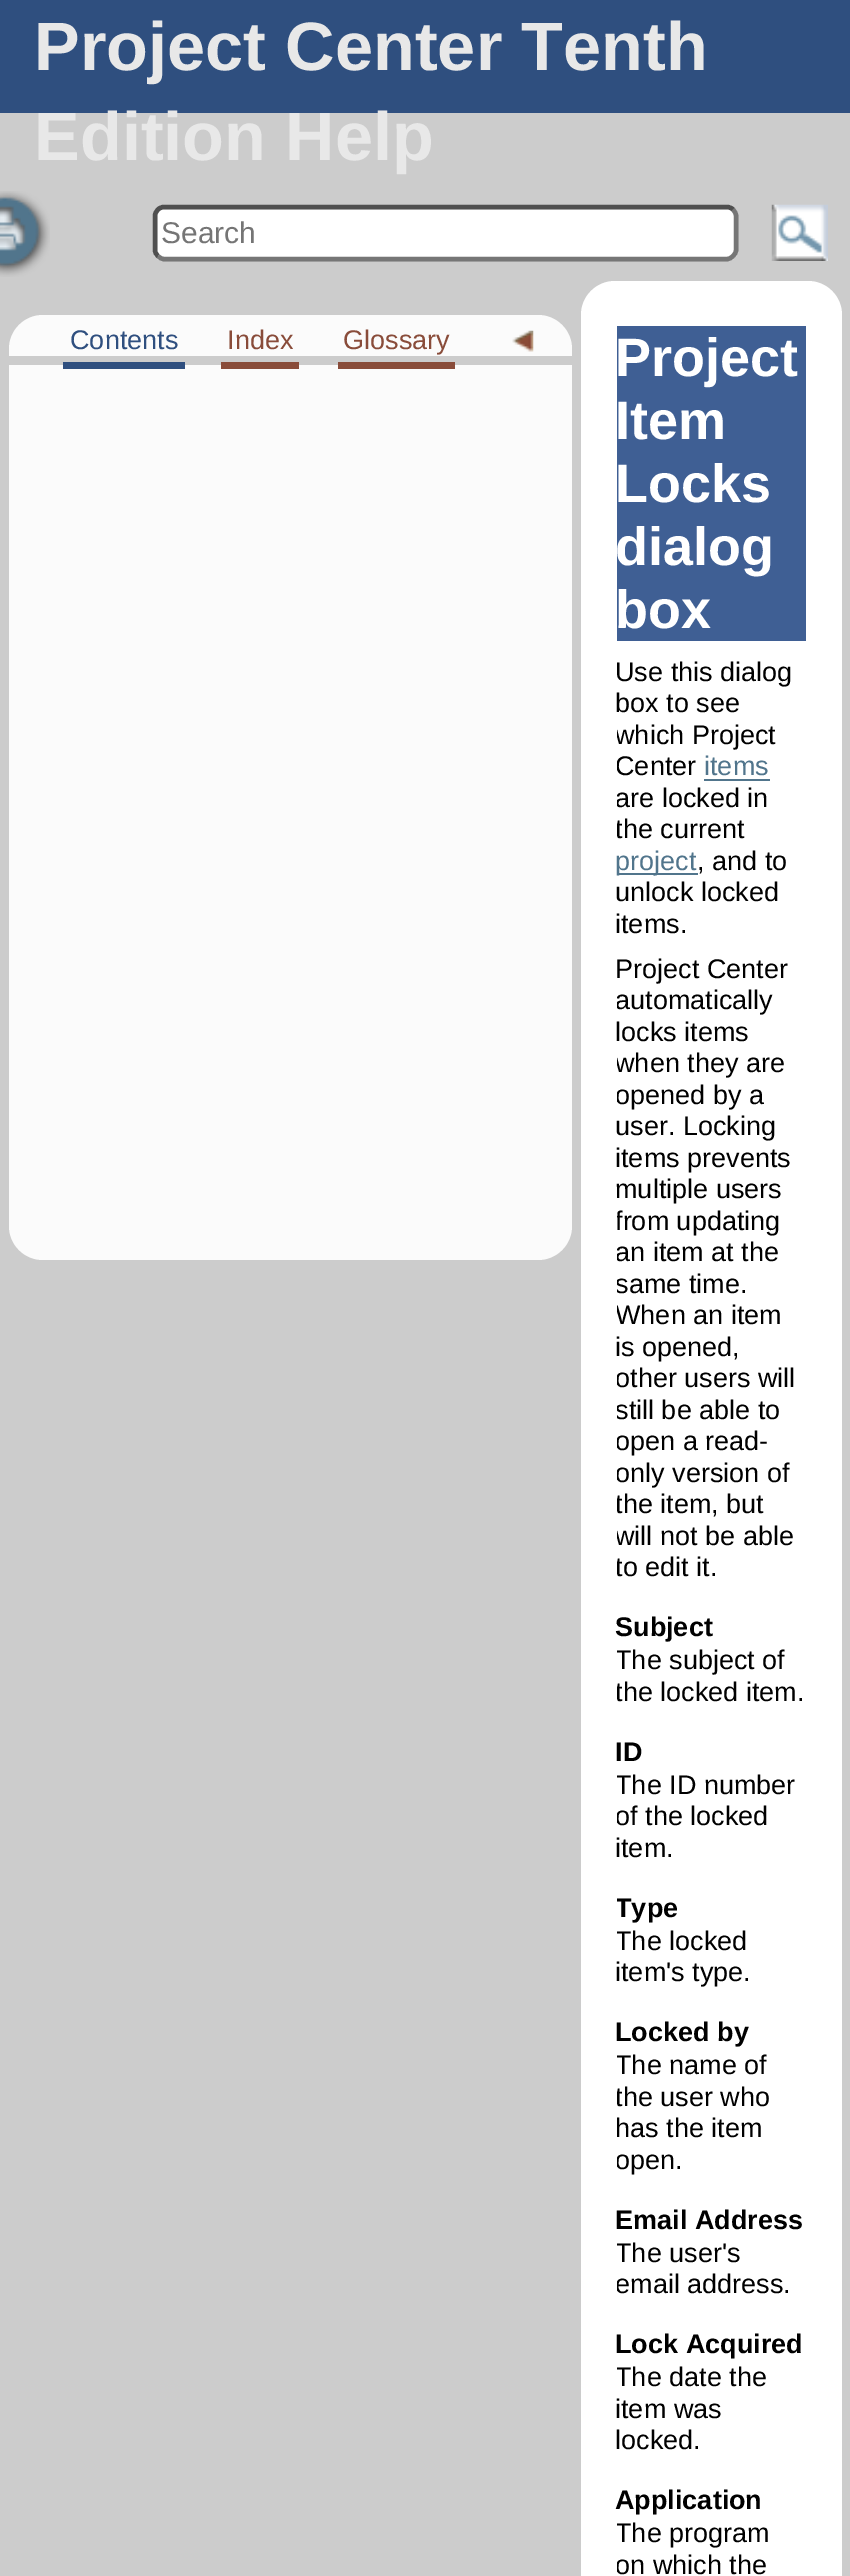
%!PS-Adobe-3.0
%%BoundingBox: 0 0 850 2576
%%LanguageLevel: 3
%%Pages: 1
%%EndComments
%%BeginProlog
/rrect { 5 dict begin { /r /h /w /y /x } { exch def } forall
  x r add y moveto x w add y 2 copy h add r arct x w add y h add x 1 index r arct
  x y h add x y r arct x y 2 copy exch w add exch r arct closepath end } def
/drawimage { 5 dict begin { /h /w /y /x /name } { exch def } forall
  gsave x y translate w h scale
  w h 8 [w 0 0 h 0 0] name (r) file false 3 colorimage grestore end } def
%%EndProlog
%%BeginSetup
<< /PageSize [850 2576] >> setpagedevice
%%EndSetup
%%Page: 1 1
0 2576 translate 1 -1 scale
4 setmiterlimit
0.8 setgray
0 0 850 2576 rectfill
0.184 0.31 0.498 setrgbcolor
0 0 850 113 rectfill
(images/1.raw) 0 191 50 86 drawimage
1 setgray
153 205 585 56 11 rrect fill
0.463 setgray
4.5 setlinewidth
newpath 733 209.5 moveto 735 211.5 736 213.5 736 216 curveto 736 250 lineto 736 252 735 254.5 733 256 curveto 731.5 258 729 259 727 259 curveto 164 259 lineto 162 259 159.5 258 158 256 curveto stroke
0.31 setgray
newpath 158 256 moveto 156 254.5 155 252 155 250 curveto 155 216 lineto 155 213.5 156 211.5 158 209.5 curveto 159.5 208 162 207 164 207 curveto 727 207 lineto 729 207 731.5 208 733 209.5 curveto stroke
(images/2.raw) 771 204 57 57 drawimage
0.984 setgray
9 315 563 945 34 rrect fill
0.8 setgray
9 356 563 9 rectfill
0.184 0.31 0.498 setrgbcolor
63 362 122 7 rectfill
0.537 0.298 0.227 setrgbcolor
221 362 78 7 rectfill
338 362 117 7 rectfill
(images/3.raw) 512 330 22 22 drawimage
1 setgray
581 281 261 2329 34 rrect fill
0.247 0.373 0.58 setrgbcolor
617 326 189 315 rectfill
0.318 0.459 0.549 setrgbcolor
704 779 66 2 rectfill
617 873 81 2 rectfill
/LiberationSans-Bold [68.5 0 0 -68.5 0 0] selectfont
0.91 setgray
34 70 moveto (Project Center Tenth) show
34 160 moveto (Edition Help) show
/LiberationSans-Regular [30 0 0 -30 0 0] selectfont
0.459 setgray
161 243 moveto (Search) show
/LiberationSans-Regular [27 0 0 -27 0 0] selectfont
0.184 0.31 0.498 setrgbcolor
70 349 moveto (Contents) show
0.537 0.298 0.227 setrgbcolor
227 349 moveto (Index) show
343 349 moveto (Glossary) show
/LiberationSans-Bold [54 0 0 -54 0 0] selectfont
1 setgray
615 376 moveto (Project) show
615 439 moveto (Item) show
615 502 moveto (Locks) show
615 565 moveto (dialog) show
615 628 moveto (box) show
/LiberationSans-Regular [27 0 0 -27 0 0] selectfont
0 setgray
615 681 moveto (Use this dialog) show
615 712 moveto (box to see) show
gsave
617 281 189 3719 rectclip
615 744 moveto (which Project) show
615 775 moveto (Center) show
grestore
0.318 0.459 0.549 setrgbcolor
704 775 moveto (items) show
gsave
617 281 189 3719 rectclip
0 setgray
615 807 moveto (are locked in) show
615 838 moveto (the current) show
grestore
615 870 moveto (project) show
0 setgray
697 870 moveto (, and to) show
615 901 moveto (unlock locked) show
615 933 moveto (items.) show
615 978 moveto (Project Center) show
gsave
617 281 189 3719 rectclip
615 1009 moveto (automatically) show
grestore
615 1041 moveto (locks items) show
gsave
617 281 189 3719 rectclip
615 1072 moveto (when they are) show
615 1104 moveto (opened by a) show
grestore
615 1135 moveto (user. Locking) show
615 1167 moveto (items prevents) show
615 1198 moveto (multiple users) show
gsave
617 281 189 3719 rectclip
615 1230 moveto (from updating) show
615 1261 moveto (an item at the) show
615 1293 moveto (same time.) show
615 1324 moveto (When an item) show
grestore
615 1356 moveto (is opened,) show
gsave
617 281 189 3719 rectclip
615 1387 moveto (other users will) show
615 1419 moveto (still be able to) show
615 1450 moveto (open a read-) show
615 1482 moveto (only version of) show
615 1513 moveto (the item, but) show
615 1545 moveto (will not be able) show
615 1576 moveto (to edit it.) show
grestore
/LiberationSans-Bold [27 0 0 -27 0 0] selectfont
615 1636 moveto (Subject) show
gsave
617 281 189 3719 rectclip
/LiberationSans-Regular [27 0 0 -27 0 0] selectfont
615 1669 moveto (The subject of) show
615 1701 moveto (the locked item.) show
grestore
615 1761 moveto (ID) show
gsave
617 281 189 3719 rectclip
/LiberationSans-Regular [27 0 0 -27 0 0] selectfont
615 1794 moveto (The ID number) show
615 1825 moveto (of the locked) show
grestore
/LiberationSans-Regular [27 0 0 -27 0 0] selectfont
615 1857 moveto (item.) show
gsave
617 281 189 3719 rectclip
/LiberationSans-Bold [27 0 0 -27 0 0] selectfont
615 1917 moveto (Type) show
/LiberationSans-Regular [27 0 0 -27 0 0] selectfont
615 1950 moveto (The locked) show
grestore
615 1981 moveto (item's type.) show
/LiberationSans-Bold [27 0 0 -27 0 0] selectfont
615 2041 moveto (Locked by) show
gsave
617 281 189 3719 rectclip
/LiberationSans-Regular [27 0 0 -27 0 0] selectfont
615 2074 moveto (The name of) show
615 2106 moveto (the user who) show
grestore
/LiberationSans-Regular [27 0 0 -27 0 0] selectfont
615 2137 moveto (has the item) show
gsave
617 281 189 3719 rectclip
615 2169 moveto (open.) show
grestore
/LiberationSans-Bold [27 0 0 -27 0 0] selectfont
615 2229 moveto (Email Address) show
gsave
617 281 189 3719 rectclip
/LiberationSans-Regular [27 0 0 -27 0 0] selectfont
615 2262 moveto (The user's) show
615 2293 moveto (email address.) show
grestore
615 2353 moveto (Lock Acquired) show
gsave
617 281 189 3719 rectclip
/LiberationSans-Regular [27 0 0 -27 0 0] selectfont
615 2386 moveto (The date the) show
grestore
/LiberationSans-Regular [27 0 0 -27 0 0] selectfont
615 2418 moveto (item was) show
615 2449 moveto (locked.) show
/LiberationSans-Bold [27 0 0 -27 0 0] selectfont
615 2509 moveto (Application) show
gsave
617 281 189 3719 rectclip
/LiberationSans-Regular [27 0 0 -27 0 0] selectfont
615 2542 moveto (The program) show
615 2574 moveto (on which the) show
grestore
showpage
%%EOF
